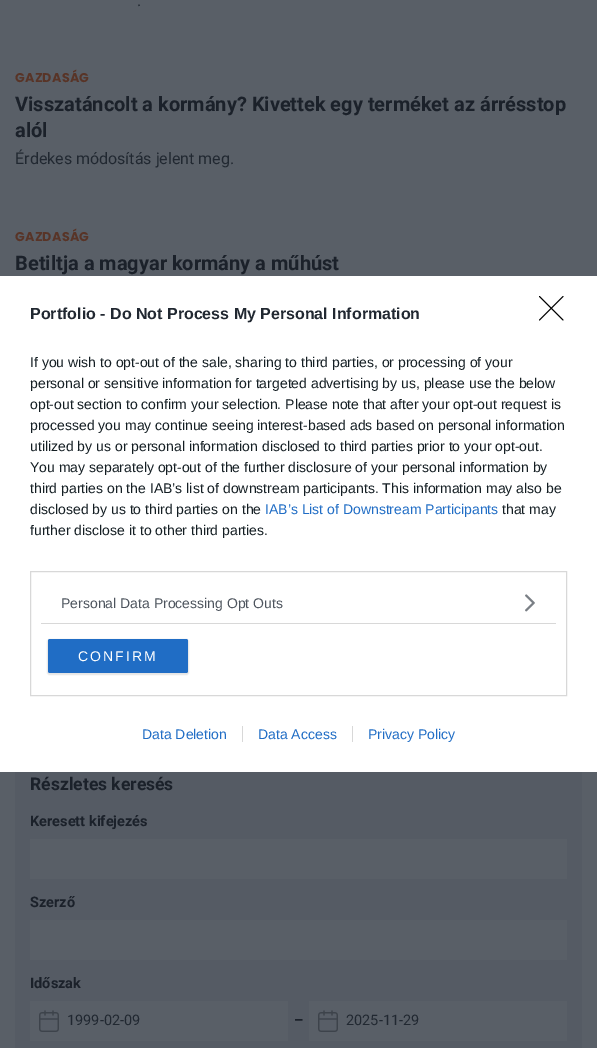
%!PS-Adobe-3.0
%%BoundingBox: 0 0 597 1048
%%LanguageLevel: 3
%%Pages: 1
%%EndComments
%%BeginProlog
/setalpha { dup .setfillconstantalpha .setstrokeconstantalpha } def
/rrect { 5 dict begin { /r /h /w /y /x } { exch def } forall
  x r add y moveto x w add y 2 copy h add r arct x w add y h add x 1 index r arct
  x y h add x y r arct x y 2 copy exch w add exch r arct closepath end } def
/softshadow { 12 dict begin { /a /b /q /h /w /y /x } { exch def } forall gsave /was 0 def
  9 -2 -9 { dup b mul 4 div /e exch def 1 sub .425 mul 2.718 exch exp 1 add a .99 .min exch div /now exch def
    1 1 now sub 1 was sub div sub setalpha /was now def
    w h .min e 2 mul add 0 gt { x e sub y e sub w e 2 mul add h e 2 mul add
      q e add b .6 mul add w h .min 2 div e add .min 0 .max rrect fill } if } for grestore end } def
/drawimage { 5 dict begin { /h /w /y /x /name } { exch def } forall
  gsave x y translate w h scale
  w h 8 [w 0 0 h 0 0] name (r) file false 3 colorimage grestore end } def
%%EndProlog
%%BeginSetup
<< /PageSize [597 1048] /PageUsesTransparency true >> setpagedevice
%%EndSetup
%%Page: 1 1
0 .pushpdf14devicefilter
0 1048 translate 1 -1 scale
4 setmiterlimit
0.349 0.373 0.404 setrgbcolor
0 0 597 1048 rectfill
0.333 0.357 0.392 setrgbcolor
15 772 567 276 rectfill
0.349 0.373 0.404 setrgbcolor
30 839 537 40 rectfill
30 920 537 40 rectfill
30 1001 258 40 rectfill
(images/1.raw) 39 1010 20 22 drawimage
309 1001 258 40 rectfill
(images/1.raw) 318 1010 20 22 drawimage
1 setgray
0 276 597 496 rectfill
0 setgray
1 setlinecap
1 setlinejoin
newpath 539.5 296.5 moveto 563 320 lineto 563 296.5 moveto 539.5 320 lineto stroke
0.847 setgray
0 setlinecap
0 setlinejoin
30.5 571.5 536 124 rectstroke
41 623 515 1 rectfill
(images/2.raw) 525 594 10 18 drawimage
0 setgray
47 639 142 36 3 0.5 0.1 softshadow
0.125 0.427 0.773 setrgbcolor
48 639 140 34 2 rrect fill
0.847 setgray
242 726 1 16 rectfill
352 726 1 16 rectfill
/Roboto-Regular [16 0 0 -16 0 0] selectfont
0.129 0.157 0.192 setrgbcolor
137 6 moveto (.) show
/Poppins-Bold [12.75 0 0 -12.75 0 0] selectfont
0.345 0.204 0.153 setrgbcolor
15 82 moveto 0.25 0 (GAZDASÁG) ashow
/Roboto-Bold [20 0 0 -20 0 0] selectfont
0.106 0.129 0.165 setrgbcolor
15 111 moveto (Visszatáncolt a kormány? Kivettek egy terméket az árrésstop) show
15 137 moveto (alól) show
/Roboto-Regular [16 0 0 -16 0 0] selectfont
0.129 0.157 0.192 setrgbcolor
15 164 moveto (Érdekes módosítás jelent meg.) show
/Poppins-Bold [12.75 0 0 -12.75 0 0] selectfont
0.345 0.204 0.153 setrgbcolor
15 241 moveto 0.25 0 (GAZDASÁG) ashow
/Roboto-Bold [20 0 0 -20 0 0] selectfont
0.106 0.129 0.165 setrgbcolor
15 270 moveto (Betiltja a magyar kormány a műhúst) show
/Roboto-Bold [17.5 0 0 -17.5 0 0] selectfont
30 790 moveto (Részletes keresés) show
/Roboto-Bold [14.5 0 0 -14.5 0 0] selectfont
30 826 moveto (Keresett kifejezés) show
30 907 moveto (Szerző) show
30 988 moveto (Időszak) show
/Roboto-Regular [14.5 0 0 -14.5 0 0] selectfont
0.129 0.157 0.192 setrgbcolor
67 1025 moveto (1999-02-09) show
/Roboto-Bold [14.5 0 0 -14.5 0 0] selectfont
0.106 0.129 0.165 setrgbcolor
294 1025 moveto (–) show
/Roboto-Regular [14.5 0 0 -14.5 0 0] selectfont
0.129 0.157 0.192 setrgbcolor
346 1025 moveto (2025-11-29) show
/LiberationSans-Bold [16 0 0 -16 0 0] selectfont
30 319 moveto (Portfolio - Do Not Process My Personal Information) show
/LiberationSans-Regular [14 0 0 -14 0 0] selectfont
0.078 0.118 0.137 setrgbcolor
30 367 moveto (If you wish to opt-out of the sale, sharing to third parties, or processing of your) show
30 388 moveto (personal or sensitive information for targeted advertising by us, please use the below) show
30 409 moveto (opt-out section to confirm your selection. Please note that after your opt-out request is) show
30 430 moveto (processed you may continue seeing interest-based ads based on personal information) show
30 451 moveto (utilized by us or personal information disclosed to third parties prior to your opt-out.) show
30 472 moveto (You may separately opt-out of the further disclosure of your personal information by) show
30 493 moveto (third parties on the IAB’s list of downstream participants. This information may also be) show
30 514 moveto (disclosed by us to third parties on the) show
0.125 0.427 0.773 setrgbcolor
265 514 moveto (IAB’s List of Downstream Participants) show
0.078 0.118 0.137 setrgbcolor
502 514 moveto (that may) show
30 535 moveto (further disclose it to other third parties.) show
0.302 0.329 0.365 setrgbcolor
61 608 moveto (Personal Data Processing Opt Outs) show
1 setgray
78 661 moveto 2 0 (CONFIRM) ashow
0.125 0.427 0.773 setrgbcolor
142 739 moveto (Data Deletion) show
258 739 moveto (Data Access) show
368 739 moveto (Privacy Policy) show
.poppdf14devicefilter showpage
%%EOF
